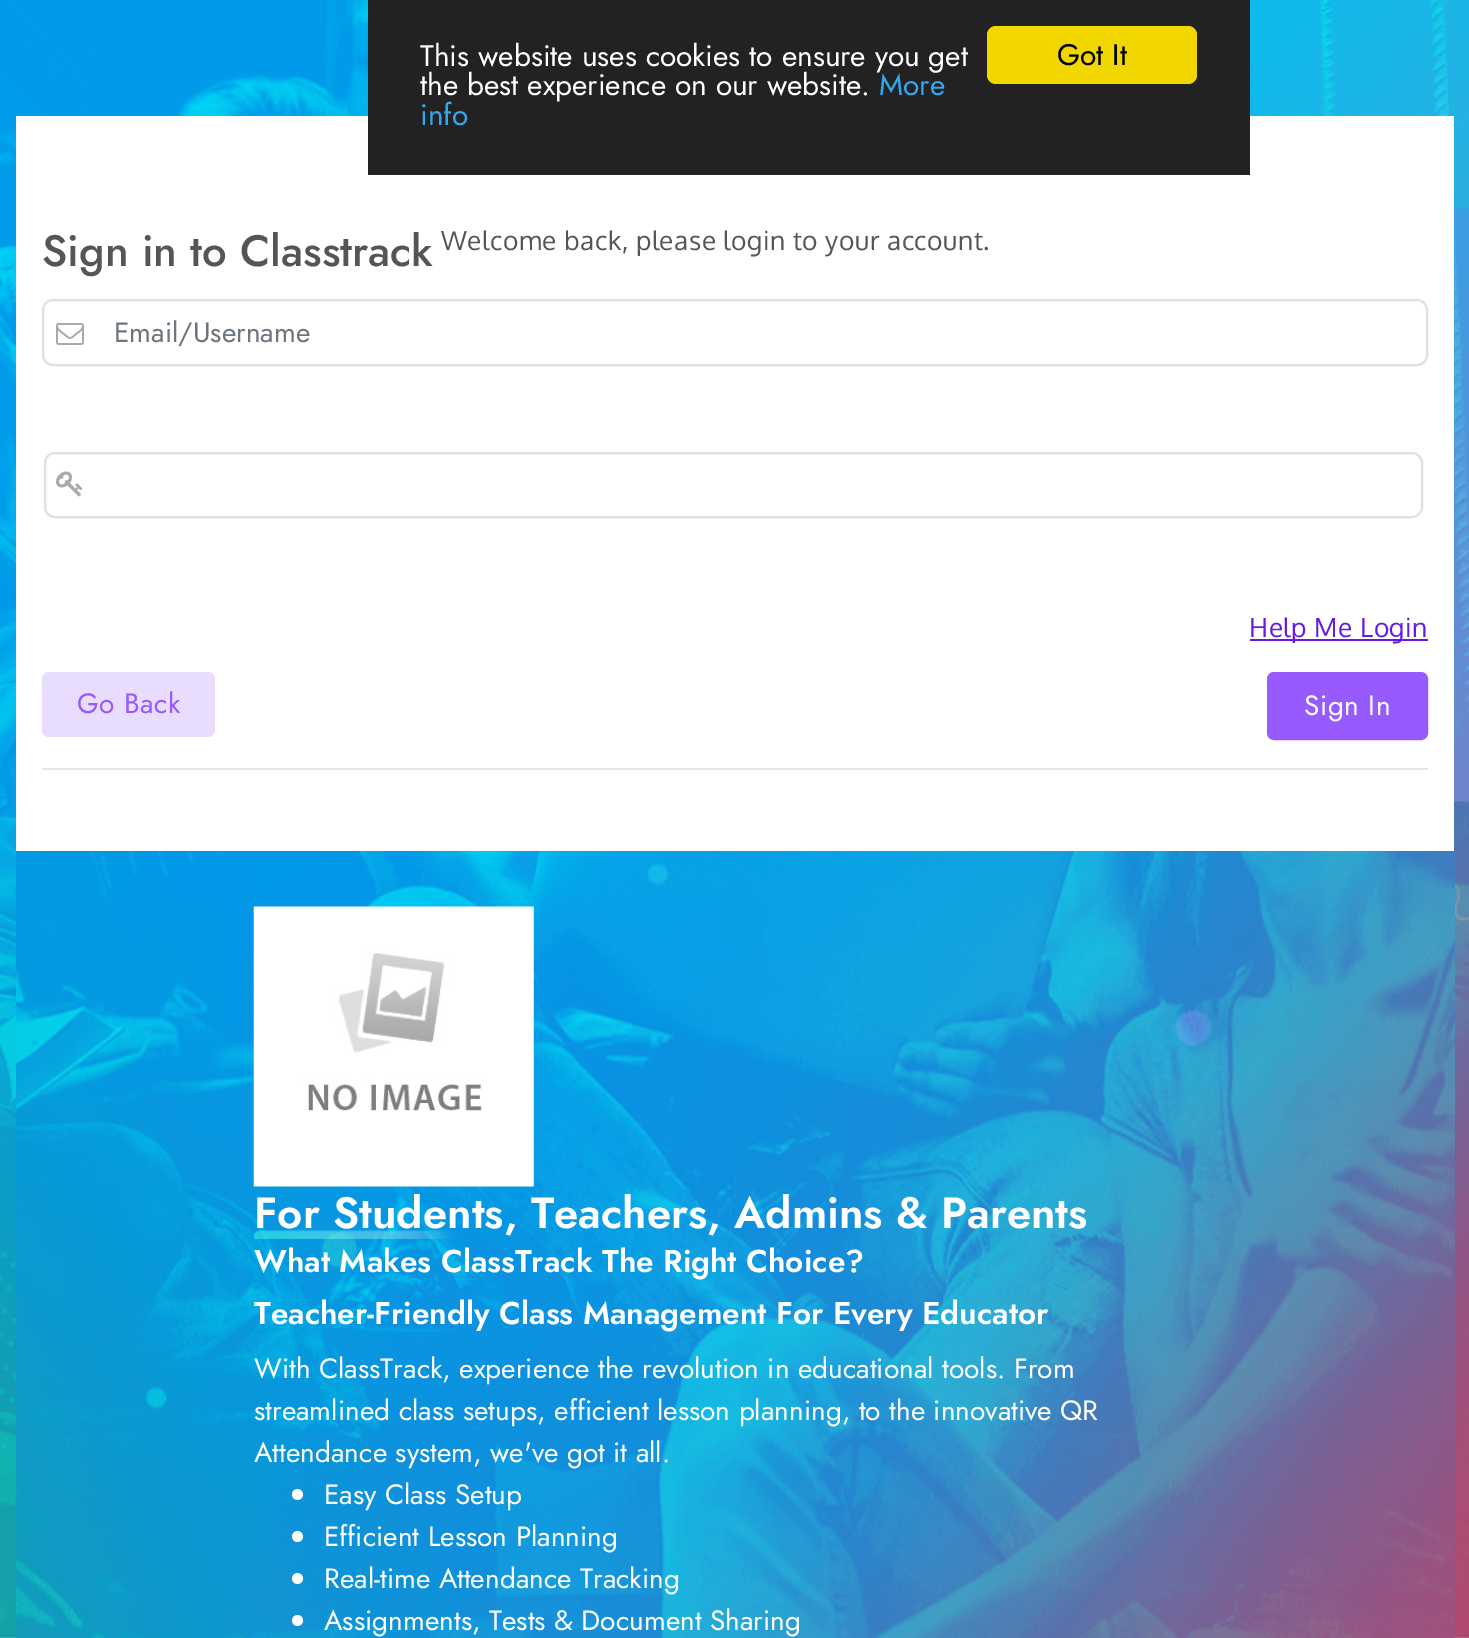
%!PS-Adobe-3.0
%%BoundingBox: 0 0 1469 1638
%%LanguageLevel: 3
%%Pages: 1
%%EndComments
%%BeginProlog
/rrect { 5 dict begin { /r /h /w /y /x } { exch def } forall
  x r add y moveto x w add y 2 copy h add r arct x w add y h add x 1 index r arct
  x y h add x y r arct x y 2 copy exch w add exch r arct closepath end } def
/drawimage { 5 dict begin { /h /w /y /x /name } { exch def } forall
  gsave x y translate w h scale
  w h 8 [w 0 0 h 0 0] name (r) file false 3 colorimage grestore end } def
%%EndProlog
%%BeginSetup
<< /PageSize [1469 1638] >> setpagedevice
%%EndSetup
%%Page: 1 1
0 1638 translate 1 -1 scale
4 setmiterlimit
1 setgray
0 0 1469 1638 rectfill
(images/1.raw) 0 0 1469 1638 drawimage
16 116 1438 735 rectfill
0.133 setgray
368 0 882 175 rectfill
0.945 0.839 0 setrgbcolor
987 26 210 58 9 rrect fill
0.878 setgray
2 setlinewidth
43 300 1384 65 10 rrect stroke
(images/2.raw) 56 323 28 22 drawimage
45 453 1377 64 10 rrect stroke
(images/3.raw) 56 471 27 26 drawimage
0.392 0.102 0.886 setrgbcolor
1250 639 178 2 rectfill
0.914 0.867 1 setrgbcolor
42 672 173 65 7 rrect fill
0.592 0.353 1 setrgbcolor
1268 673 159 66 6 rrect gsave fill grestore
stroke
0.902 setgray
42 768 1386 2 rectfill
(images/4.raw) 16 851 1439 787 drawimage
(images/5.raw) 253 906 281 281 drawimage
(images/6.raw) 253 1230 203 9 drawimage
1 setgray
newpath 297.5 1494.5 5.5 0 360 arc closepath fill
newpath 297.5 1536.5 5.5 0 360 arc closepath fill
newpath 297.5 1578.5 5.5 0 360 arc closepath fill
newpath 297.5 1620.5 5.5 0 360 arc closepath fill
/Jost-Regular [29.75 0 0 -29.75 0 0] selectfont
420 66 moveto (This website uses cookies to ensure you get) show
420 95 moveto (the best experience on our website.) show
0.192 0.659 0.941 setrgbcolor
879 95 moveto (More) show
420 125 moveto (info) show
0 setgray
1057 65 moveto (Got It) show
/Jost-Medium [43.75 0 0 -43.75 0 0] selectfont
0.333 setgray
42 266 moveto (Sign in to Classtrack) show
/Oxygen-Regular [26.25 0 0 -26.25 0 0] selectfont
441 250 moveto 0.55 0 (Welcome back, please login to your account.) ashow
/Jost-Regular [28 0 0 -28 0 0] selectfont
0.424 0.459 0.49 setrgbcolor
114 342 moveto (Email/Username) show
/Oxygen-Regular [26.25 0 0 -26.25 0 0] selectfont
0.392 0.102 0.886 setrgbcolor
1249 637 moveto 0.55 0 (Help Me Login) ashow
/Jost-Regular [28 0 0 -28 0 0] selectfont
0.592 0.353 1 setrgbcolor
77 713 moveto 0.55 0 (Go Back) ashow
1 setgray
1304 715 moveto 0.55 0 (Sign In) ashow
/Jost-SemiBold [43.75 0 0 -43.75 0 0] selectfont
254 1228 moveto (For Students, Teachers, Admins & Parents) show
/Jost-SemiBold [31.5 0 0 -31.5 0 0] selectfont
254 1272 moveto (What Makes ClassTrack The Right Choice?) show
254 1324 moveto (Teacher-Friendly Class Management For Every Educator) show
/Jost-Regular [28 0 0 -28 0 0] selectfont
254 1378 moveto (With ClassTrack, experience the revolution in educational tools. From) show
254 1420 moveto (streamlined class setups, efficient lesson planning, to the innovative QR) show
254 1462 moveto (Attendance system, we've got it all.) show
324 1504 moveto (Easy Class Setup) show
324 1546 moveto (Efficient Lesson Planning) show
324 1588 moveto (Real-time Attendance Tracking) show
324 1630 moveto (Assignments, Tests & Document Sharing) show
showpage
%%EOF
